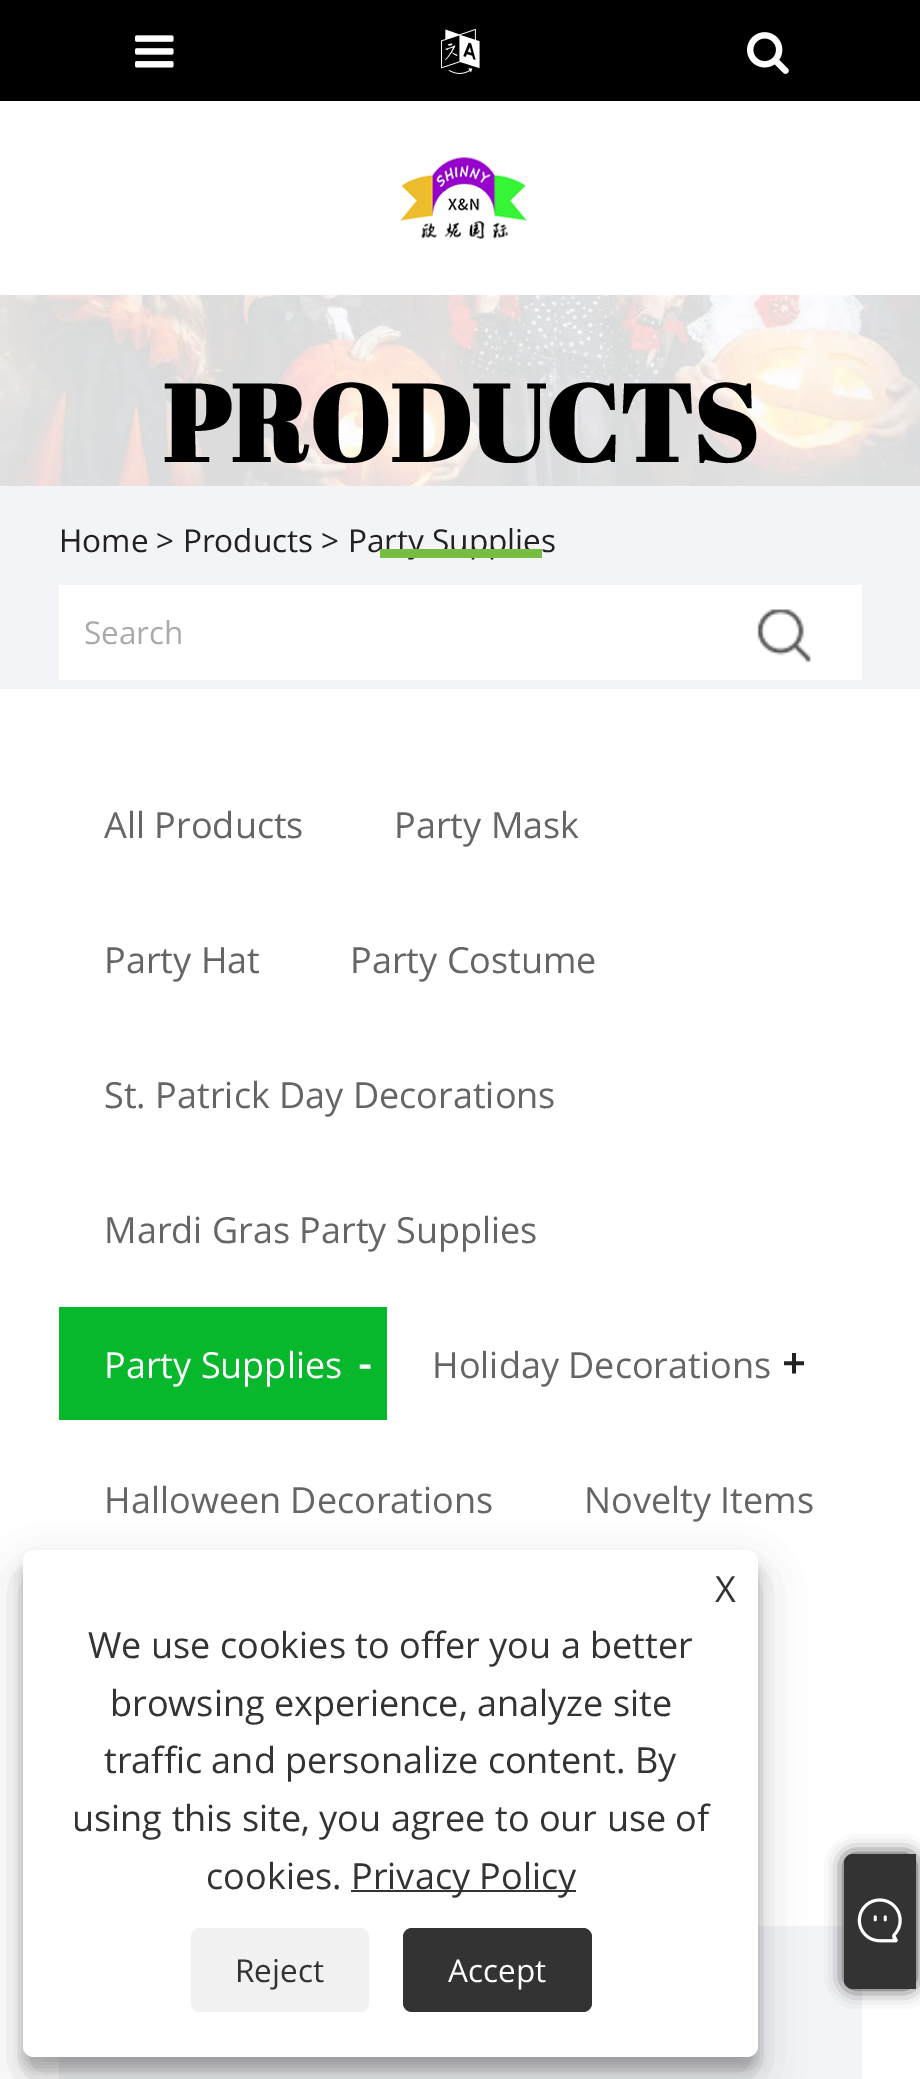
%!PS-Adobe-3.0
%%BoundingBox: 0 0 920 2079
%%LanguageLevel: 3
%%Pages: 1
%%EndComments
%%BeginProlog
/setalpha { dup .setfillconstantalpha .setstrokeconstantalpha } def
/rrect { 5 dict begin { /r /h /w /y /x } { exch def } forall
  x r add y moveto x w add y 2 copy h add r arct x w add y h add x 1 index r arct
  x y h add x y r arct x y 2 copy exch w add exch r arct closepath end } def
/softshadow { 12 dict begin { /a /b /q /h /w /y /x } { exch def } forall gsave /was 0 def
  9 -2 -9 { dup b mul 4 div /e exch def 1 sub .425 mul 2.718 exch exp 1 add a .99 .min exch div /now exch def
    1 1 now sub 1 was sub div sub setalpha /was now def
    w h .min e 2 mul add 0 gt { x e sub y e sub w e 2 mul add h e 2 mul add
      q e add b .6 mul add w h .min 2 div e add .min 0 .max rrect fill } if } for grestore end } def
/drawimage { 5 dict begin { /h /w /y /x /name } { exch def } forall
  gsave x y translate w h scale
  w h 8 [w 0 0 h 0 0] name (r) file false 3 colorimage grestore end } def
%%EndProlog
%%BeginSetup
<< /PageSize [920 2079] /PageUsesTransparency true >> setpagedevice
%%EndSetup
%%Page: 1 1
0 .pushpdf14devicefilter
0 2079 translate 1 -1 scale
4 setmiterlimit
1 setgray
0 0 920 2079 rectfill
0 setgray
0 0 920 101 rectfill
(images/1.raw) 135 35 39 33 drawimage
(images/2.raw) 441 29 39 45 drawimage
(images/3.raw) 747 32 42 42 drawimage
(images/4.raw) 400 157 127 82 drawimage
(images/5.raw) 0 295 920 191 drawimage
0.953 0.957 0.973 setrgbcolor
0 486 920 203 rectfill
1 setgray
59 585 803 95 rectfill
(images/6.raw) 757 609 54 54 drawimage
0.027 0.722 0.176 setrgbcolor
59 1307 328 113 rectfill
0.953 0.957 0.973 setrgbcolor
59 1926 803 153 rectfill
0 setgray
23 1564 735 506 11 7 0.23 softshadow
23 1573 735 506 11 22.5 0.19 softshadow
1 setgray
23 1550 735 507 11 rrect fill
0.2 setgray
351 1890 225 2 rectfill
0.945 setgray
191 1928 178 84 9 rrect fill
0.2 setgray
403 1928 189 84 9 rrect fill
844 1854 72 135 9 9 1 softshadow
newpath 853 1854 moveto 916 1854 lineto 916 1989 lineto 853 1989 lineto 848 1989 844 1985 844 1980 curveto 844 1863 lineto 844 1858 848 1854 853 1854 curveto closepath fill
(images/7.raw) 857 1898 45 45 drawimage
/AbrilFatface-Bold [108 0 0 -108 0 0] selectfont
0 setgray
163 462 moveto (PRODUCTS) show
/OpenSans-Regular [31.5 0 0 -31.5 0 0] selectfont
0.133 setgray
59 552 moveto (Home > Products > Party Supplies) show
0.463 0.741 0.259 setrgbcolor
380 549 162 9 rectfill
0.667 setgray
84 644 moveto (Search) show
/OpenSans-Regular [36 0 0 -36 0 0] selectfont
0.392 0.396 0.396 setrgbcolor
104 838 moveto (All Products) show
394 838 moveto (Party Mask) show
104 973 moveto (Party Hat) show
350 973 moveto (Party Costume) show
104 1108 moveto (St. Patrick Day Decorations) show
104 1243 moveto (Mardi Gras Party Supplies) show
1 setgray
104 1378 moveto (Party Supplies) show
/OpenSans-Bold [40 0 0 -40 0 0] selectfont
358 1378 moveto (-) show
/OpenSans-Regular [36 0 0 -36 0 0] selectfont
0.392 0.396 0.396 setrgbcolor
432 1378 moveto (Holiday Decorations) show
/OpenSans-Bold [40 0 0 -40 0 0] selectfont
0.133 setgray
782 1378 moveto (+) show
/OpenSans-Regular [36 0 0 -36 0 0] selectfont
0.392 0.396 0.396 setrgbcolor
104 1513 moveto (Halloween Decorations) show
584 1513 moveto (Novelty Items) show
0.2 setgray
715 1602 moveto (X) show
88 1658 moveto (We use cookies to offer you a better) show
110 1716 moveto (browsing experience, analyze site) show
104 1773 moveto (traffic and personalize content. By) show
72 1831 moveto (using this site, you agree to our use of) show
206 1889 moveto (cookies.) show
351 1889 moveto (Privacy Policy) show
/OpenSans-Regular [31.5 0 0 -31.5 0 0] selectfont
235 1982 moveto (Reject) show
1 setgray
448 1982 moveto (Accept) show
.poppdf14devicefilter showpage
%%EOF
